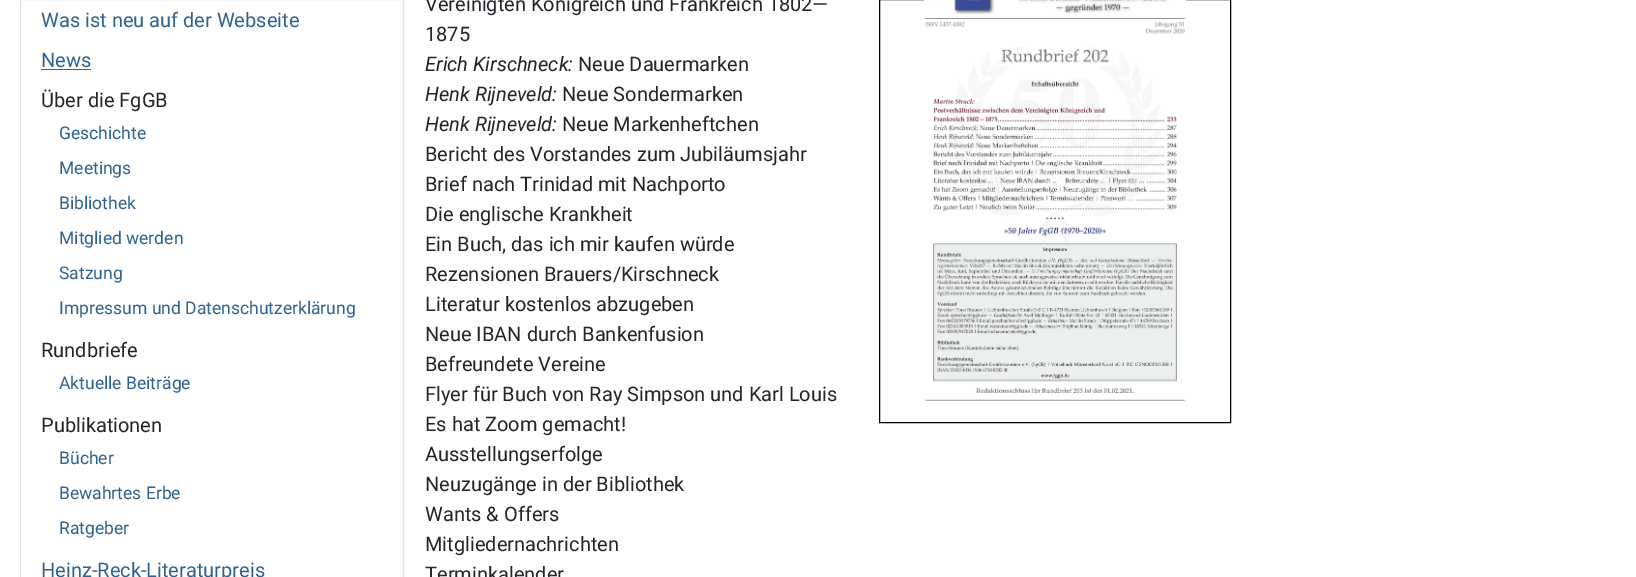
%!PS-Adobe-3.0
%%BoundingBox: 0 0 1636 577
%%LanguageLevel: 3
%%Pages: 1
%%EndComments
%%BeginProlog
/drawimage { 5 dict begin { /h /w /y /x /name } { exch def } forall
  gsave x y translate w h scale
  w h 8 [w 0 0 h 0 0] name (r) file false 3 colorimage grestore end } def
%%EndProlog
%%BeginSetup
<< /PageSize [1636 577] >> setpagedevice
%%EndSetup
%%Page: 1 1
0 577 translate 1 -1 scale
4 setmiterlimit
1 setgray
0 0 1636 577 rectfill
0.875 0.89 0.906 setrgbcolor
20.5 -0.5 383 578 rectstroke
0.188 0.388 0.553 setrgbcolor
41 69 50 1 rectfill
0 setgray
879.5 -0.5 351 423 rectstroke
(images/1.raw) 924 0 262 401 drawimage
/Roboto-Regular [20 0 0 -20 0 0] selectfont
0.188 0.388 0.553 setrgbcolor
41 27 moveto (Was ist neu auf der Webseite) show
41 67 moveto (News) show
0.133 0.149 0.165 setrgbcolor
41 107 moveto (Über die FgGB) show
/Roboto-Regular [17.5 0 0 -17.5 0 0] selectfont
0.188 0.388 0.553 setrgbcolor
59 139 moveto (Geschichte) show
59 174 moveto (Meetings) show
59 209 moveto (Bibliothek) show
59 244 moveto (Mitglied werden) show
59 279 moveto (Satzung) show
59 314 moveto (Impressum und Datenschutzerklärung) show
/Roboto-Regular [20 0 0 -20 0 0] selectfont
0.133 0.149 0.165 setrgbcolor
41 357 moveto (Rundbriefe) show
/Roboto-Regular [17.5 0 0 -17.5 0 0] selectfont
0.188 0.388 0.553 setrgbcolor
59 389 moveto (Aktuelle Beiträge) show
/Roboto-Regular [20 0 0 -20 0 0] selectfont
0.133 0.149 0.165 setrgbcolor
41 432 moveto (Publikationen) show
/Roboto-Regular [17.5 0 0 -17.5 0 0] selectfont
0.188 0.388 0.553 setrgbcolor
59 464 moveto (Bücher) show
59 499 moveto (Bewahrtes Erbe) show
59 534 moveto (Ratgeber) show
/Roboto-Regular [20 0 0 -20 0 0] selectfont
41 577 moveto (Heinz-Reck-Literaturpreis) show
0.133 0.149 0.165 setrgbcolor
425 11 moveto (Vereinigten Königreich und Frankreich 1802—) show
425 41 moveto (1875) show
/Roboto-Italic [20 0 0 -20 0 0] selectfont
425 71 moveto (Erich Kirschneck:) show
/Roboto-Regular [20 0 0 -20 0 0] selectfont
578 71 moveto (Neue Dauermarken) show
/Roboto-Italic [20 0 0 -20 0 0] selectfont
425 101 moveto (Henk Rijneveld:) show
/Roboto-Regular [20 0 0 -20 0 0] selectfont
562 101 moveto (Neue Sondermarken) show
/Roboto-Italic [20 0 0 -20 0 0] selectfont
425 131 moveto (Henk Rijneveld:) show
/Roboto-Regular [20 0 0 -20 0 0] selectfont
562 131 moveto (Neue Markenheftchen) show
425 161 moveto (Bericht des Vorstandes zum Jubiläumsjahr) show
425 191 moveto (Brief nach Trinidad mit Nachporto) show
425 221 moveto (Die englische Krankheit) show
425 251 moveto (Ein Buch, das ich mir kaufen würde) show
425 281 moveto (Rezensionen Brauers/Kirschneck) show
425 311 moveto (Literatur kostenlos abzugeben) show
425 341 moveto (Neue IBAN durch Bankenfusion) show
425 371 moveto (Befreundete Vereine) show
425 401 moveto (Flyer für Buch von Ray Simpson und Karl Louis) show
425 431 moveto (Es hat Zoom gemacht!) show
425 461 moveto (Ausstellungserfolge) show
425 491 moveto (Neuzugänge in der Bibliothek) show
425 521 moveto (Wants & Offers) show
425 551 moveto (Mitgliedernachrichten) show
425 581 moveto (Terminkalender) show
showpage
%%EOF
